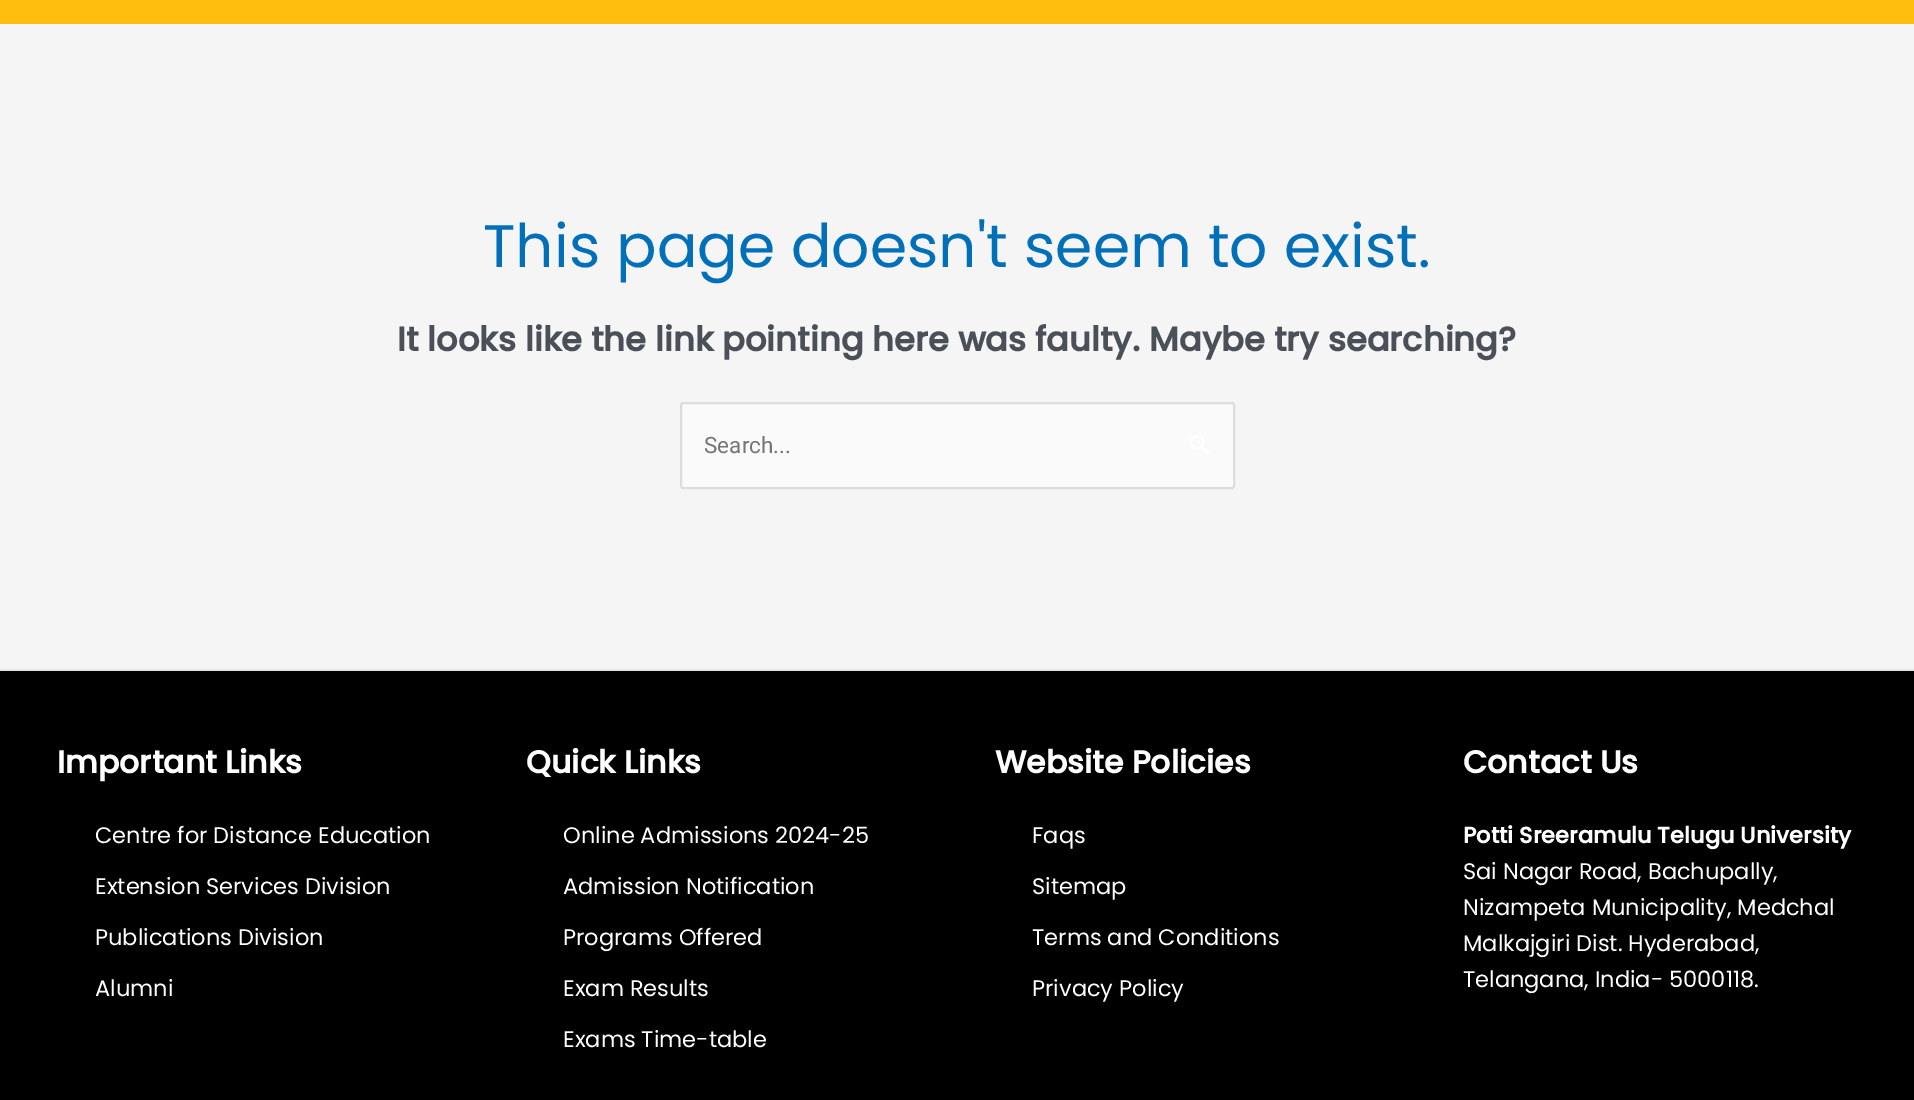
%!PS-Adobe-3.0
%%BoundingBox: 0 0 1914 1100
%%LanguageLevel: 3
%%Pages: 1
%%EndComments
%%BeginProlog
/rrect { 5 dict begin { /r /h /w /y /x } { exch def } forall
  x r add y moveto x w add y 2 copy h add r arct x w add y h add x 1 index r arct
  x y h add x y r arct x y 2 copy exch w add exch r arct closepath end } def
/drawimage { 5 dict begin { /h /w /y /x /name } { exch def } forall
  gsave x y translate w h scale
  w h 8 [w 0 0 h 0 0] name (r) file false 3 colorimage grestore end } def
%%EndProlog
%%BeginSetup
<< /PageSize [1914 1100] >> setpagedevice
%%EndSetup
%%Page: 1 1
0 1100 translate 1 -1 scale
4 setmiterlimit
0.961 setgray
0 0 1914 1100 rectfill
1 0.745 0.055 setrgbcolor
0 0 1914 24 rectfill
0.98 setgray
681 403 553 85 2 rrect gsave fill grestore
0.867 setgray
2 setlinewidth
stroke
(images/1.raw) 1190 435 19 19 drawimage
0 setgray
0 671 1914 429 rectfill
0.902 setgray
0 669 1914 2 rectfill
/Poppins-Regular [60 0 0 -60 0 0] selectfont
0.004 0.439 0.725 setrgbcolor
483 267 moveto (This page doesn't seem to exist.) show
/Poppins-Bold [33.75 0 0 -33.75 0 0] selectfont
0.294 0.31 0.345 setrgbcolor
397 351 moveto (It looks like the link pointing here was faulty. Maybe try searching?) show
/Roboto-Regular [22.5 0 0 -22.5 0 0] selectfont
0.459 setgray
704 453 moveto (Search...) show
/Poppins-Bold [31.5 0 0 -31.5 0 0] selectfont
1 setgray
57 773 moveto (Important Links) show
/Poppins-Regular [22.5 0 0 -22.5 0 0] selectfont
95 843 moveto (Centre for Distance Education) show
95 894 moveto (Extension Services Division) show
95 945 moveto (Publications Division) show
95 996 moveto (Alumni) show
/Poppins-Bold [31.5 0 0 -31.5 0 0] selectfont
526 773 moveto (Quick Links) show
/Poppins-Regular [22.5 0 0 -22.5 0 0] selectfont
563 843 moveto (Online Admissions 2024-25) show
563 894 moveto (Admission Notification) show
563 945 moveto (Programs Offered) show
563 996 moveto (Exam Results) show
563 1047 moveto (Exams Time-table) show
/Poppins-Bold [31.5 0 0 -31.5 0 0] selectfont
995 773 moveto (Website Policies) show
/Poppins-Regular [22.5 0 0 -22.5 0 0] selectfont
1032 843 moveto (Faqs) show
1032 894 moveto (Sitemap) show
1032 945 moveto (Terms and Conditions) show
1032 996 moveto (Privacy Policy) show
/Poppins-Bold [31.5 0 0 -31.5 0 0] selectfont
1463 773 moveto (Contact Us) show
/Poppins-Bold [22.5 0 0 -22.5 0 0] selectfont
1463 843 moveto (Potti Sreeramulu Telugu University) show
/Poppins-Regular [22.5 0 0 -22.5 0 0] selectfont
1463 879 moveto (Sai Nagar Road, Bachupally,) show
1463 915 moveto (Nizampeta Municipality, Medchal) show
1463 951 moveto (Malkajgiri Dist. Hyderabad,) show
1463 987 moveto (Telangana, India- 5000118.) show
showpage
%%EOF
